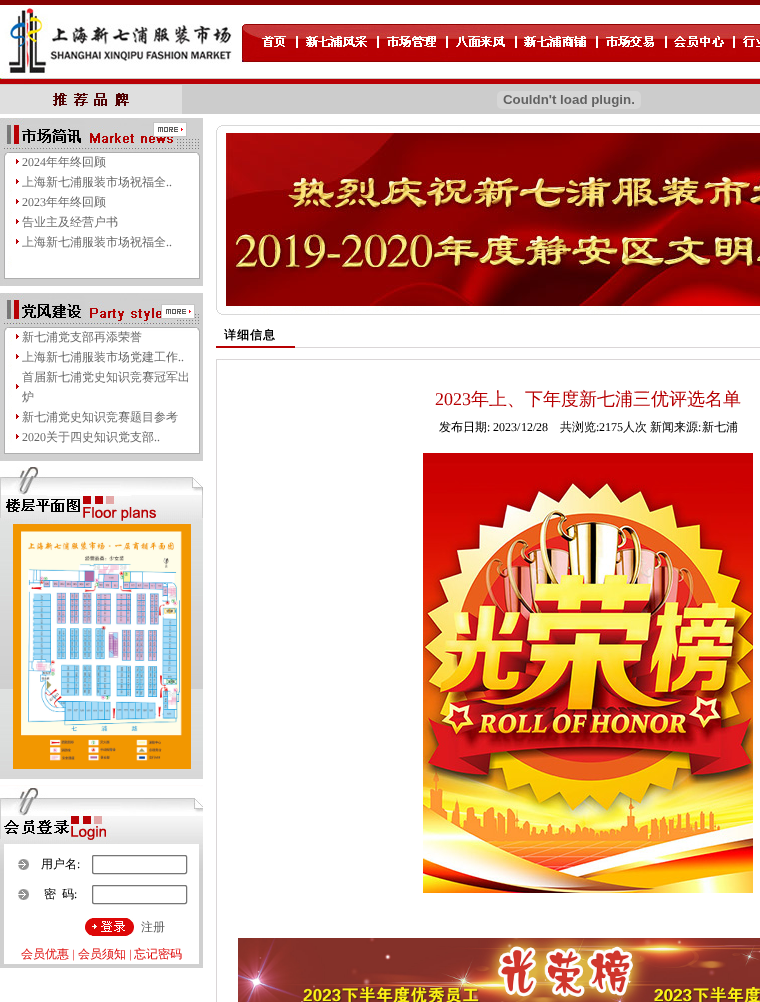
%!PS-Adobe-3.0
%%BoundingBox: 0 0 760 1002
%%LanguageLevel: 3
%%Pages: 1
%%EndComments
%%BeginProlog
/rrect { 5 dict begin { /r /h /w /y /x } { exch def } forall
  x r add y moveto x w add y 2 copy h add r arct x w add y h add x 1 index r arct
  x y h add x y r arct x y 2 copy exch w add exch r arct closepath end } def
/drawimage { 5 dict begin { /h /w /y /x /name } { exch def } forall
  gsave x y translate w h scale
  w h 8 [w 0 0 h 0 0] name (r) file false 3 colorimage grestore end } def
%%EndProlog
%%BeginSetup
<< /PageSize [760 1002] >> setpagedevice
%%EndSetup
%%Page: 1 1
0 1002 translate 1 -1 scale
4 setmiterlimit
1 setgray
0 0 760 1002 rectfill
(images/1.raw) 0 0 760 85 drawimage
0.875 setgray
0 85 182 29 rectfill
(images/2.raw) 53 92 76 15 drawimage
0.8 setgray
182 85 578 29 rectfill
(images/3.raw) 497 91 144 18 drawimage
(images/4.raw) 0 118 203 34 drawimage
(images/5.raw) 153 122 34 15 drawimage
(images/6.raw) 0 152 12 134 drawimage
(images/7.raw) 12 152 183 134 drawimage
(images/8.raw) 16 159 3 5 drawimage
(images/8.raw) 16 179 3 5 drawimage
(images/8.raw) 16 199 3 5 drawimage
(images/8.raw) 16 219 3 5 drawimage
(images/8.raw) 16 239 3 5 drawimage
(images/9.raw) 195 152 8 134 drawimage
(images/10.raw) 0 293 203 34 drawimage
(images/5.raw) 161 304 34 15 drawimage
(images/6.raw) 0 327 12 134 drawimage
(images/7.raw) 12 327 183 134 drawimage
(images/8.raw) 16 334 3 5 drawimage
(images/8.raw) 16 354 3 5 drawimage
(images/8.raw) 16 384 3 5 drawimage
(images/8.raw) 16 414 3 5 drawimage
(images/8.raw) 16 434 3 5 drawimage
(images/9.raw) 195 327 8 134 drawimage
(images/11.raw) 0 467 203 57 drawimage
(images/12.raw) 0 524 203 255 drawimage
(images/13.raw) 13 524 178 237 drawimage
(images/14.raw) 13 761 8 8 drawimage
(images/15.raw) 21 761 4 8 drawimage
(images/16.raw) 25 761 166 8 drawimage
(images/17.raw) 0 785 203 59 drawimage
(images/18.raw) 0 844 203 124 drawimage
1 setgray
4 844 195 120 rectfill
(images/19.raw) 18 859 11 11 drawimage
0.463 setgray
92.5 855.5 94 18 1.5 rrect stroke
(images/19.raw) 18 889 11 11 drawimage
92.5 885.5 94 18 1.5 rrect stroke
(images/20.raw) 85 918 49 18 drawimage
(images/21.raw) 216 125 544 8 drawimage
0.847 setgray
216 133 1 173 rectfill
(images/22.raw) 226 133 534 173 drawimage
(images/23.raw) 216 306 544 9 drawimage
(images/24.raw) 216 346 544 2 drawimage
(images/25.raw) 216 359 544 2 drawimage
0.855 0.839 0.843 setrgbcolor
216 361 1 641 rectfill
(images/26.raw) 423 453 330 440 drawimage
(images/27.raw) 238 938 522 64 drawimage
/LiberationSerif-Regular [12 0 0 -12 0 0] selectfont
0.4 setgray
22 166 moveto (2024) show
/WenQuanYiZenHei-Medium [12 0 0 -12 0 0] selectfont
46 166 moveto (年年终回顾) show
22 186 moveto (上海新七浦服装市场祝福全) show
/LiberationSerif-Regular [12 0 0 -12 0 0] selectfont
166 186 moveto (..) show
22 206 moveto (2023) show
/WenQuanYiZenHei-Medium [12 0 0 -12 0 0] selectfont
46 206 moveto (年年终回顾) show
22 226 moveto (告业主及经营户书) show
22 246 moveto (上海新七浦服装市场祝福全) show
/LiberationSerif-Regular [12 0 0 -12 0 0] selectfont
166 246 moveto (..) show
/WenQuanYiZenHei-Medium [12 0 0 -12 0 0] selectfont
22 341 moveto (新七浦党支部再添荣誉) show
22 361 moveto (上海新七浦服装市场党建工作) show
/LiberationSerif-Regular [12 0 0 -12 0 0] selectfont
178 361 moveto (..) show
/WenQuanYiZenHei-Medium [12 0 0 -12 0 0] selectfont
22 381 moveto (首届新七浦党史知识竞赛冠军出) show
22 401 moveto (炉) show
22 421 moveto (新七浦党史知识竞赛题目参考) show
/LiberationSerif-Regular [12 0 0 -12 0 0] selectfont
22 441 moveto (2020) show
/WenQuanYiZenHei-Medium [12 0 0 -12 0 0] selectfont
46 441 moveto (关于四史知识党支部) show
/LiberationSerif-Regular [12 0 0 -12 0 0] selectfont
154 441 moveto (..) show
/WenQuanYiZenHei-Medium [12 0 0 -12 0 0] selectfont
0 setgray
41 868 moveto (用户名) show
/LiberationSerif-Regular [12 0 0 -12 0 0] selectfont
77 868 moveto (:) show
/WenQuanYiZenHei-Medium [12 0 0 -12 0 0] selectfont
44 898 moveto (密) show
62 898 moveto (码) show
/LiberationSerif-Regular [12 0 0 -12 0 0] selectfont
74 898 moveto (:) show
/WenQuanYiZenHei-Medium [12 0 0 -12 0 0] selectfont
0.4 setgray
141 931 moveto (注册) show
0.871 0.031 0.024 setrgbcolor
21 958 moveto (会员优惠) show
/LiberationSerif-Regular [12 0 0 -12 0 0] selectfont
72 958 moveto (|) show
/WenQuanYiZenHei-Medium [12 0 0 -12 0 0] selectfont
78 958 moveto (会员须知) show
/LiberationSerif-Regular [12 0 0 -12 0 0] selectfont
129 958 moveto (|) show
/WenQuanYiZenHei-Medium [12 0 0 -12 0 0] selectfont
134 958 moveto (忘记密码) show
/WenQuanYiZenHei-Bold [12 0 0 -12 0 0] selectfont
0 setgray
224 339 moveto 1 0 (详细信息) ashow
/LiberationSerif-Regular [18 0 0 -18 0 0] selectfont
0.718 0 0.008 setrgbcolor
435 405 moveto (2023) show
/WenQuanYiZenHei-Medium [18 0 0 -18 0 0] selectfont
471 405 moveto (年上、下年度新七浦三优评选名单) show
/WenQuanYiZenHei-Medium [12 0 0 -12 0 0] selectfont
0 setgray
439 431 moveto (发布日期) show
/LiberationSerif-Regular [12 0 0 -12 0 0] selectfont
487 431 moveto (: 2023/12/28) show
/WenQuanYiZenHei-Medium [12 0 0 -12 0 0] selectfont
560 431 moveto (共浏览) show
/LiberationSerif-Regular [12 0 0 -12 0 0] selectfont
596 431 moveto (:2175) show
/WenQuanYiZenHei-Medium [12 0 0 -12 0 0] selectfont
623 431 moveto (人次) show
650 431 moveto (新闻来源 新七浦) show
/LiberationSerif-Regular [12 0 0 -12 0 0] selectfont
698 431 moveto (:) show
showpage
%%EOF
